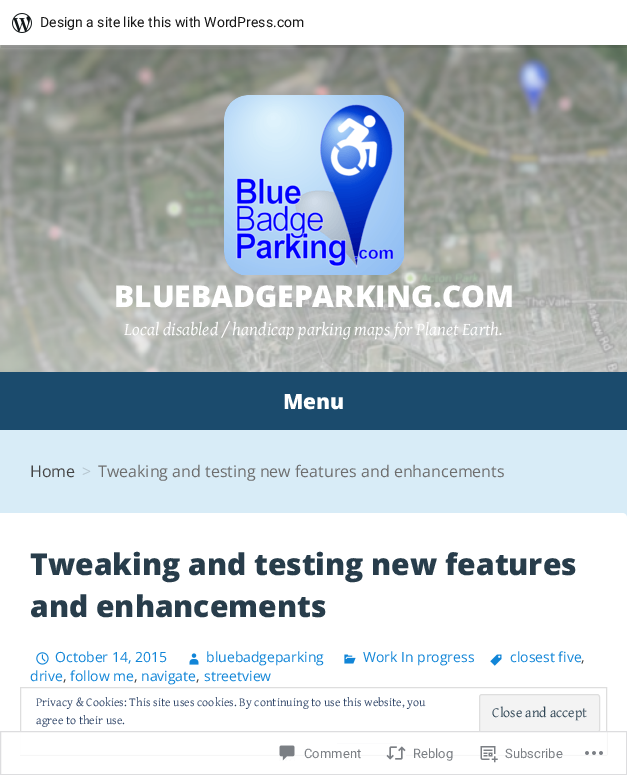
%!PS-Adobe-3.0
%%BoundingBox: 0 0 627 775
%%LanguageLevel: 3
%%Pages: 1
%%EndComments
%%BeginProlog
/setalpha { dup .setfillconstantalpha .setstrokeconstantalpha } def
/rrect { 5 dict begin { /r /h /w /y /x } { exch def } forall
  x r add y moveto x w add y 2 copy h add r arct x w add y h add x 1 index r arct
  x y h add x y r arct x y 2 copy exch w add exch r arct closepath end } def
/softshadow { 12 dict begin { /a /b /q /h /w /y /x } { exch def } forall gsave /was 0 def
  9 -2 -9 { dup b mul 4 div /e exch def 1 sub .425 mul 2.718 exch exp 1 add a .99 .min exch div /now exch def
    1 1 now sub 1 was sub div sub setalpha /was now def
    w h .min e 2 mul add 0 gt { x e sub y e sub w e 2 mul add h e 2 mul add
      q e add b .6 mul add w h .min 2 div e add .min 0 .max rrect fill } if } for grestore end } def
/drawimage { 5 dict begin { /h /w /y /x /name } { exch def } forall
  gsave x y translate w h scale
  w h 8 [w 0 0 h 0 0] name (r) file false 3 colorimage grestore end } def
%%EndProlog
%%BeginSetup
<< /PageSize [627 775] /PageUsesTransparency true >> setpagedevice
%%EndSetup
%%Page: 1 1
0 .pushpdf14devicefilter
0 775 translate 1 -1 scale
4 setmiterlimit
0.847 0.925 0.969 setrgbcolor
0 0 627 775 rectfill
(images/2.raw) 0 45 627 327 drawimage
0 setgray
0 1 627 45 0 1 0.05 softshadow
0.08 setalpha
newpath 1 45 moveto 1 48 lineto 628 48 lineto 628 3 lineto 627 3 lineto 627 45 lineto closepath fill
1 setalpha
1 setgray
0 0 627 45 rectfill
(images/1.raw) 12 13 20 20 drawimage
(images/3.raw) 224 95 180 180 drawimage
0.106 0.294 0.427 setrgbcolor
0 372 627 58 rectfill
1 setgray
newpath 0 513 moveto 622 513 lineto 625 513 627 515 627 518 curveto 627 775 lineto 627 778 625 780 622 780 curveto 0 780 lineto closepath fill
(images/4.raw) 490 654 12 12 drawimage
(images/5.raw) 36 652 13 13 drawimage
(images/6.raw) 189 653 10 12 drawimage
(images/7.raw) 344 654 12 10 drawimage
0.871 setgray
20.5 687.5 586 67 rectstroke
0.953 setgray
479.5 694.5 120 38 2.5 rrect gsave fill grestore
0.871 setgray
stroke
0.18 0.267 0.404 setrgbcolor
337 743 66 1 rectfill
0.98 setalpha
1 setgray
20 732 587 23 rectfill
1 setalpha
0.867 0.867 0.875 setrgbcolor
0.5 731.5 626 43 rectstroke
(images/8.raw) 279 745 16 16 drawimage
(images/9.raw) 386 746 20 14 drawimage
(images/10.raw) 480 746 18 17 drawimage
(images/11.raw) 585 751 18 4 drawimage
/Roboto-Regular [14 0 0 -14 0 0] selectfont
0.09 setgray
40 27 moveto (Design a site like this with WordPress.com) show
/OpenSans-ExtraBold [30 0 0 -30 0 0] selectfont
1 setgray
114 307 moveto (BLUEBADGEPARKING.COM) show
/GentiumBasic-Italic [18 0 0 -18 0 0] selectfont
124 335 moveto (Local disabled / handicap parking maps for Planet Earth.) show
/OpenSans-ExtraBold [21 0 0 -21 0 0] selectfont
283 409 moveto (Menu) show
/OpenSans-Regular [16 0 0 -16 0 0] selectfont
0.267 setgray
30 477 moveto (Home) show
0.71 0.773 0.808 setrgbcolor
82 477 moveto (>) show
0.427 setgray
98 477 moveto (Tweaking and testing new features and enhancements) show
/OpenSans-ExtraBold [30 0 0 -30 0 0] selectfont
0.157 0.239 0.294 setrgbcolor
30 575 moveto (Tweaking and testing new features) show
30 617 moveto (and enhancements) show
/OpenSans-Regular [14 0 0 -14 0 0] selectfont
0.067 0.522 0.843 setrgbcolor
510 662 moveto (closest five) show
0.267 setgray
581 662 moveto (,) show
0.067 0.522 0.843 setrgbcolor
30 681 moveto (drive) show
0.267 setgray
63 681 moveto (,) show
0.067 0.522 0.843 setrgbcolor
70 681 moveto (follow me) show
0.267 setgray
134 681 moveto (,) show
0.067 0.522 0.843 setrgbcolor
141 681 moveto (navigate) show
0.267 setgray
196 681 moveto (,) show
0.067 0.522 0.843 setrgbcolor
204 681 moveto (streetview) show
55 662 moveto (October 14, 2015) show
206 662 moveto (bluebadgeparking) show
363 662 moveto (Work In progress) show
/GentiumBasic-Regular [12 0 0 -12 0 0] selectfont
0.18 0.267 0.404 setrgbcolor
36 706 moveto (Privacy & Cookies: This site uses cookies. By continuing to use this website, you) show
36 724 moveto (agree to their use.) show
/GentiumBasic-Regular [14 0 0 -14 0 0] selectfont
0.18 0.267 0.325 setrgbcolor
492 717 moveto (Close and accept) show
/Roboto-Regular [13 0 0 -13 0 0] selectfont
0.482 0.498 0.518 setrgbcolor
304 758 moveto (Comment) show
413 758 moveto (Reblog) show
505 758 moveto (Subscribe) show
.poppdf14devicefilter showpage
%%EOF
